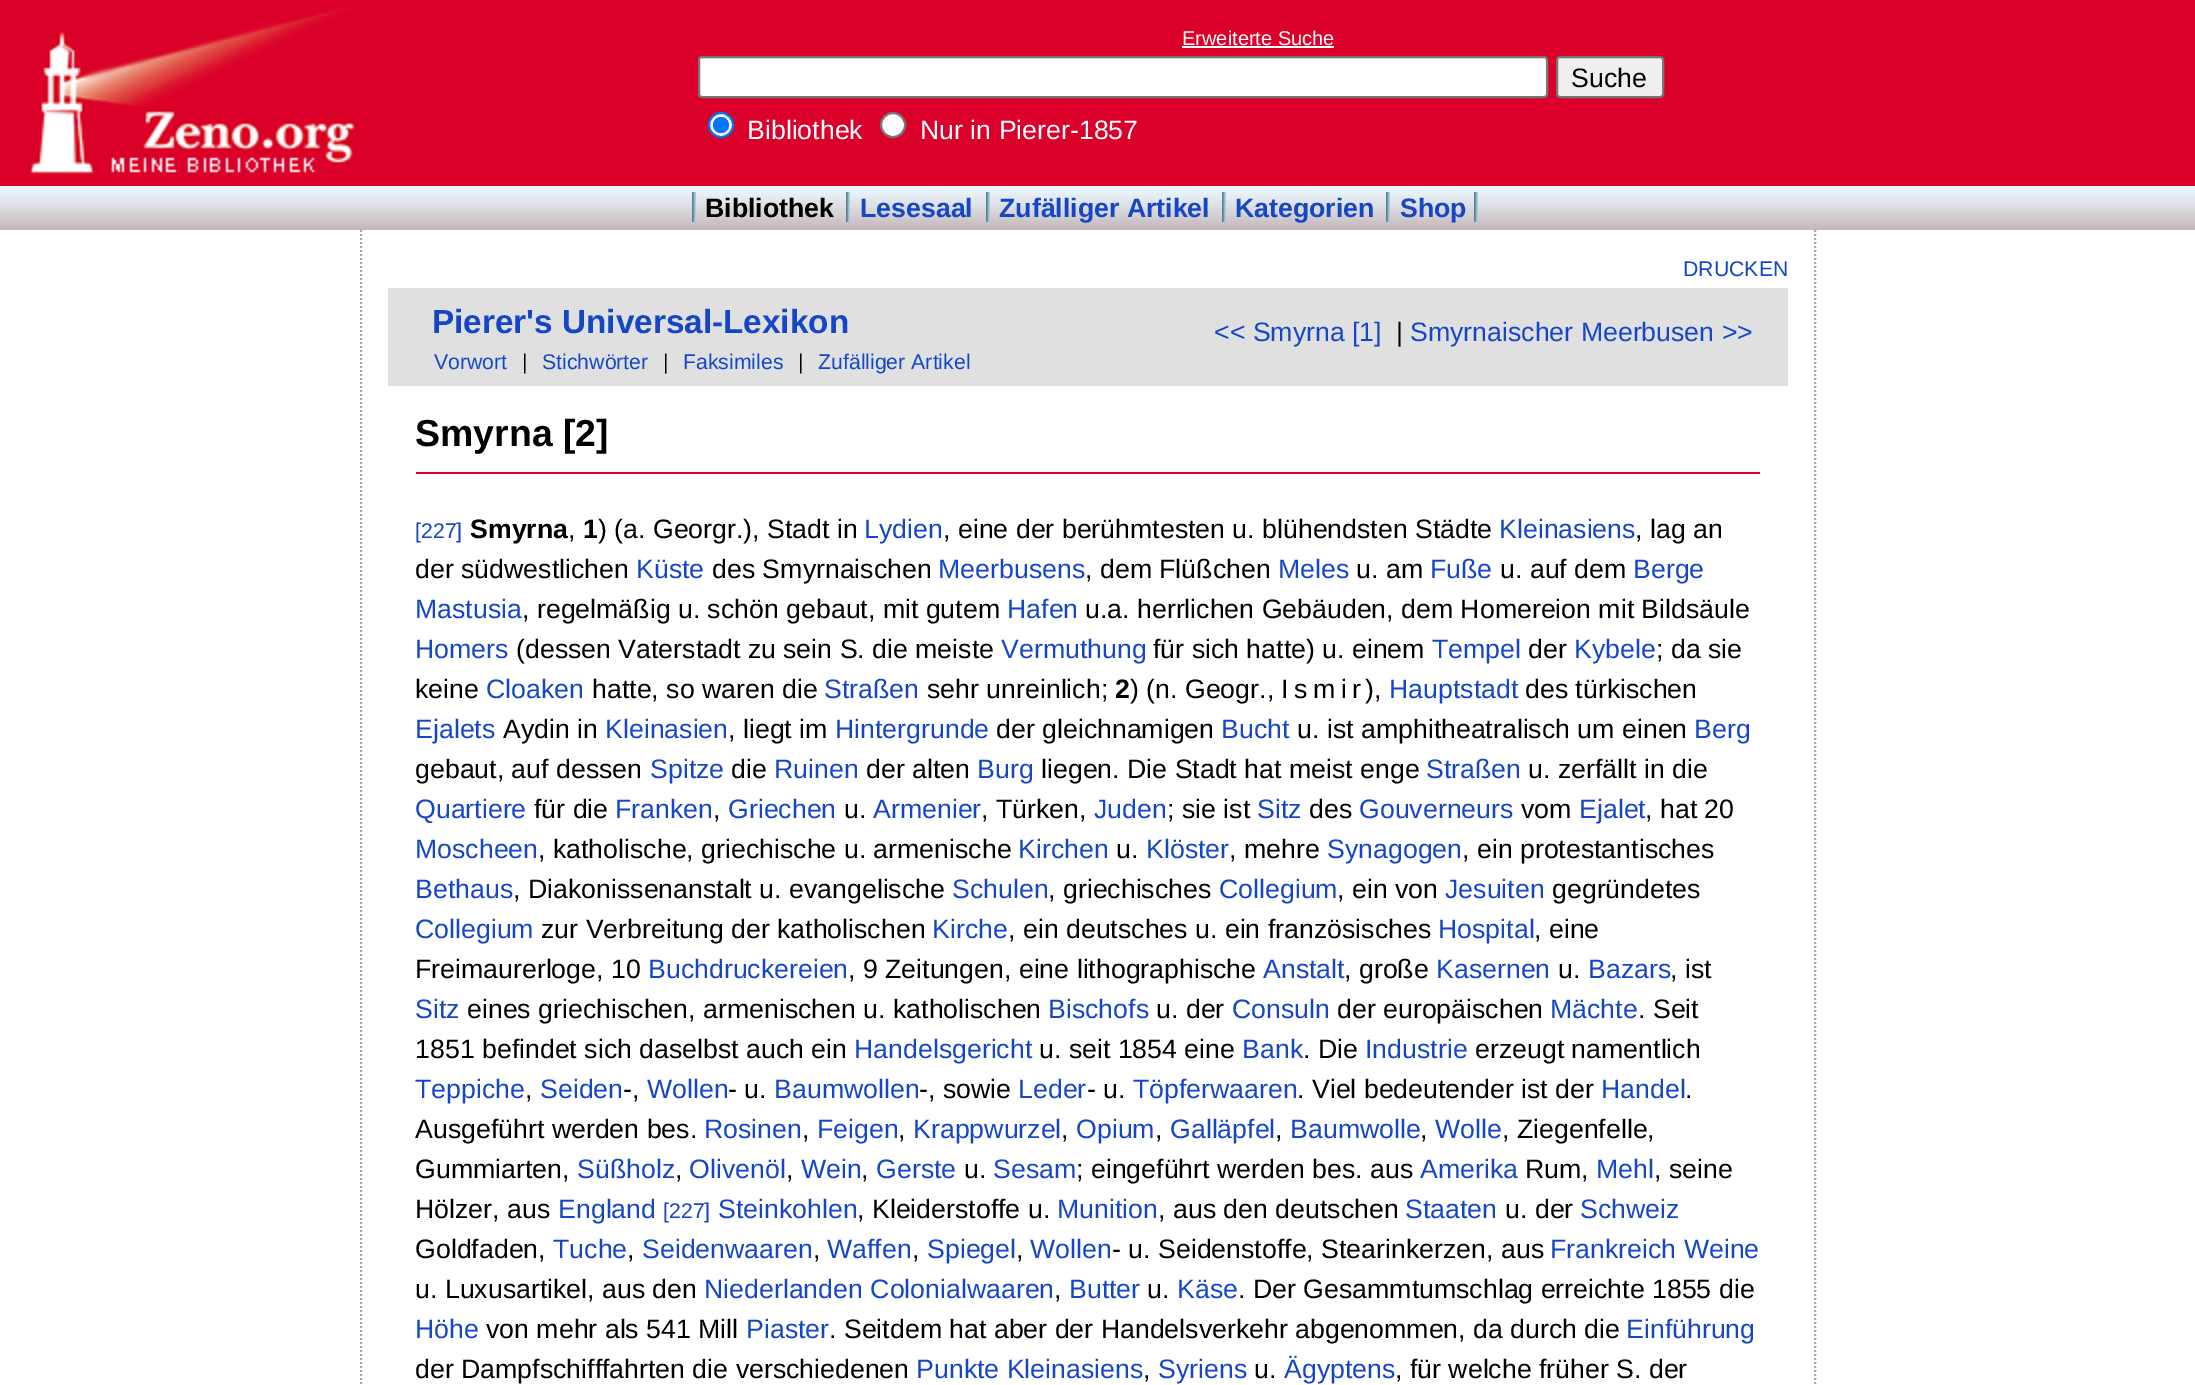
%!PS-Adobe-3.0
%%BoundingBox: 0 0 2195 1385
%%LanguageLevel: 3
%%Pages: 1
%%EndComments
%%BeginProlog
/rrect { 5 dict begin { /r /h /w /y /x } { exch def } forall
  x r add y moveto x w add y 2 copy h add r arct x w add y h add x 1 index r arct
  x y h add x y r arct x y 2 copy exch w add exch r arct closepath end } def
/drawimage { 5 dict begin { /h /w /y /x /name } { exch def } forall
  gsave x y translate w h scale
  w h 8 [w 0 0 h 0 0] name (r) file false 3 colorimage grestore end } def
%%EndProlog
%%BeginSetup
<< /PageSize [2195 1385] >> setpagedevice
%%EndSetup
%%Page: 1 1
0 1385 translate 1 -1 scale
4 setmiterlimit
1 setgray
0 0 2195 1385 rectfill
0.859 0 0.161 setrgbcolor
0 0 2195 186 rectfill
(images/1.raw) 28 7 329 169 drawimage
1 setgray
1182 46 152 2 rectfill
699 57 848 40 3 rrect gsave fill grestore
0.463 setgray
2 setlinewidth
stroke
0.937 setgray
1557 57 106 40 3 rrect gsave fill grestore
0.463 setgray
stroke
1 setgray
newpath 721 125 12 0 360 arc closepath gsave fill grestore
0 0.459 1 setrgbcolor
stroke
newpath 721 125 8 0 360 arc closepath fill
1 setgray
newpath 893 125 12 0 360 arc closepath gsave fill grestore
0.463 setgray
stroke
(images/2.raw) 0 186 2195 44 drawimage
(images/3.raw) 692 192 4 30 drawimage
(images/3.raw) 846 192 4 30 drawimage
(images/3.raw) 986 192 4 30 drawimage
(images/3.raw) 1222 192 4 30 drawimage
(images/3.raw) 1386 192 4 30 drawimage
(images/3.raw) 1474 192 4 30 drawimage
0.667 setgray
[2 2] 0 setdash
newpath 1815 230 moveto 1815 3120 lineto stroke
newpath 361 230 moveto 361 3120 lineto stroke
0.878 setgray
388 288 1400 98 rectfill
0.859 0 0.161 setrgbcolor
416 472 1344 2 rectfill
/LiberationSans-Regular [20 0 0 -20 0 0] selectfont
1 setgray
1182 45 moveto (Erweiterte Suche) show
/LiberationSans-Regular [26.7 0 0 -26.7 0 0] selectfont
0 setgray
1571 87 moveto (Suche) show
1 setgray
747 139 moveto (Bibliothek) show
920 139 moveto (Nur in Pierer-1857) show
/LiberationSans-Bold [26.7 0 0 -26.7 0 0] selectfont
0 setgray
705 217 moveto (Bibliothek) show
0.078 0.275 0.776 setrgbcolor
860 217 moveto (Lesesaal) show
999 217 moveto (Zufälliger Artikel) show
1235 217 moveto (Kategorien) show
1400 217 moveto (Shop) show
/LiberationSans-Regular [21.25 0 0 -21.25 0 0] selectfont
1683 276 moveto (DRUCKEN) show
/LiberationSans-Bold [33.3 0 0 -33.3 0 0] selectfont
432 333 moveto (Pierer's Universal-Lexikon) show
/LiberationSans-Regular [26.7 0 0 -26.7 0 0] selectfont
1214 341 moveto (<< Smyrna [1]) show
0 setgray
1396 341 moveto (|) show
0.078 0.275 0.776 setrgbcolor
1410 341 moveto (Smyrnaischer Meerbusen >>) show
/LiberationSans-Regular [21.25 0 0 -21.25 0 0] selectfont
434 369 moveto (Vorwort) show
0 setgray
522 369 moveto (|) show
0.078 0.275 0.776 setrgbcolor
542 369 moveto (Stichwörter) show
0 setgray
663 369 moveto (|) show
0.078 0.275 0.776 setrgbcolor
683 369 moveto (Faksimiles) show
0 setgray
798 369 moveto (|) show
0.078 0.275 0.776 setrgbcolor
818 369 moveto (Zufälliger Artikel) show
/LiberationSans-Bold [37.5 0 0 -37.5 0 0] selectfont
0 setgray
415 446 moveto (Smyrna [2]) show
/LiberationSans-Regular [21.25 0 0 -21.25 0 0] selectfont
0.078 0.275 0.776 setrgbcolor
415 538 moveto ([227]) show
/LiberationSans-Bold [26.7 0 0 -26.7 0 0] selectfont
0 setgray
470 538 moveto (Smyrna) show
/LiberationSans-Regular [26.7 0 0 -26.7 0 0] selectfont
568 538 moveto (,) show
/LiberationSans-Bold [26.7 0 0 -26.7 0 0] selectfont
583 538 moveto (1) show
/LiberationSans-Regular [26.7 0 0 -26.7 0 0] selectfont
598 538 moveto (\) \(a. Georgr.\), Stadt in) show
0.078 0.275 0.776 setrgbcolor
864 538 moveto (Lydien) show
0 setgray
943 538 moveto (, eine der berühmtesten u. blühendsten Städte) show
0.078 0.275 0.776 setrgbcolor
1499 538 moveto (Kleinasiens) show
0 setgray
1635 538 moveto (, lag an) show
415 578 moveto (der südwestlichen) show
0.078 0.275 0.776 setrgbcolor
636 578 moveto (Küste) show
0 setgray
712 578 moveto (des Smyrnaischen) show
0.078 0.275 0.776 setrgbcolor
938 578 moveto (Meerbusens) show
0 setgray
1085 578 moveto (, dem Flüßchen) show
0.078 0.275 0.776 setrgbcolor
1278 578 moveto (Meles) show
0 setgray
1356 578 moveto (u. am) show
0.078 0.275 0.776 setrgbcolor
1430 578 moveto (Fuße) show
0 setgray
1500 578 moveto (u. auf dem) show
0.078 0.275 0.776 setrgbcolor
1633 578 moveto (Berge) show
415 618 moveto (Mastusia) show
0 setgray
522 618 moveto (, regelmäßig u. schön gebaut, mit gutem) show
0.078 0.275 0.776 setrgbcolor
1007 618 moveto (Hafen) show
0 setgray
1085 618 moveto (u.a. herrlichen Gebäuden, dem Homereion mit Bildsäule) show
0.078 0.275 0.776 setrgbcolor
415 658 moveto (Homers) show
0 setgray
516 658 moveto (\(dessen Vaterstadt zu sein S. die meiste) show
0.078 0.275 0.776 setrgbcolor
1001 658 moveto (Vermuthung) show
0 setgray
1153 658 moveto (für sich hatte\) u. einem) show
0.078 0.275 0.776 setrgbcolor
1432 658 moveto (Tempel) show
0 setgray
1528 658 moveto (der) show
0.078 0.275 0.776 setrgbcolor
1574 658 moveto (Kybele) show
0 setgray
1656 658 moveto (; da sie) show
415 698 moveto (keine) show
0.078 0.275 0.776 setrgbcolor
486 698 moveto (Cloaken) show
0 setgray
592 698 moveto (hatte, so waren die) show
0.078 0.275 0.776 setrgbcolor
824 698 moveto (Straßen) show
0 setgray
927 698 moveto (sehr unreinlich;) show
/LiberationSans-Bold [26.7 0 0 -26.7 0 0] selectfont
1115 698 moveto (2) show
/LiberationSans-Regular [26.7 0 0 -26.7 0 0] selectfont
1130 698 moveto (\) \(n. Geogr.,) show
1281 698 moveto 5.5 0 (Ismir) ashow
1365 698 moveto (\),) show
0.078 0.275 0.776 setrgbcolor
1389 698 moveto (Hauptstadt) show
0 setgray
1525 698 moveto (des türkischen) show
0.078 0.275 0.776 setrgbcolor
415 738 moveto (Ejalets) show
0 setgray
503 738 moveto (Aydin in) show
0.078 0.275 0.776 setrgbcolor
605 738 moveto (Kleinasien) show
0 setgray
728 738 moveto (, liegt im) show
0.078 0.275 0.776 setrgbcolor
835 738 moveto (Hintergrunde) show
0 setgray
996 738 moveto (der gleichnamigen) show
0.078 0.275 0.776 setrgbcolor
1221 738 moveto (Bucht) show
0 setgray
1297 738 moveto (u. ist amphitheatralisch um einen) show
0.078 0.275 0.776 setrgbcolor
1694 738 moveto (Berg) show
0 setgray
415 778 moveto (gebaut, auf dessen) show
0.078 0.275 0.776 setrgbcolor
650 778 moveto (Spitze) show
0 setgray
731 778 moveto (die) show
0.078 0.275 0.776 setrgbcolor
774 778 moveto (Ruinen) show
0 setgray
866 778 moveto (der alten) show
0.078 0.275 0.776 setrgbcolor
977 778 moveto (Burg) show
0 setgray
1041 778 moveto (liegen. Die Stadt hat meist enge) show
0.078 0.275 0.776 setrgbcolor
1426 778 moveto (Straßen) show
0 setgray
1528 778 moveto (u. zerfällt in die) show
0.078 0.275 0.776 setrgbcolor
415 818 moveto (Quartiere) show
0 setgray
534 818 moveto (für die) show
0.078 0.275 0.776 setrgbcolor
615 818 moveto (Franken) show
0 setgray
713 818 moveto (,) show
0.078 0.275 0.776 setrgbcolor
728 818 moveto (Griechen) show
0 setgray
844 818 moveto (u.) show
0.078 0.275 0.776 setrgbcolor
873 818 moveto (Armenier) show
0 setgray
981 818 moveto (, Türken,) show
0.078 0.275 0.776 setrgbcolor
1094 818 moveto (Juden) show
0 setgray
1167 818 moveto (; sie ist) show
0.078 0.275 0.776 setrgbcolor
1257 818 moveto (Sitz) show
0 setgray
1309 818 moveto (des) show
0.078 0.275 0.776 setrgbcolor
1359 818 moveto (Gouverneurs) show
0 setgray
1521 818 moveto (vom) show
0.078 0.275 0.776 setrgbcolor
1579 818 moveto (Ejalet) show
0 setgray
1645 818 moveto (, hat 20) show
0.078 0.275 0.776 setrgbcolor
415 858 moveto (Moscheen) show
0 setgray
538 858 moveto (, katholische, griechische u. armenische) show
0.078 0.275 0.776 setrgbcolor
1018 858 moveto (Kirchen) show
0 setgray
1116 858 moveto (u.) show
0.078 0.275 0.776 setrgbcolor
1146 858 moveto (Klöster) show
0 setgray
1229 858 moveto (, mehre) show
0.078 0.275 0.776 setrgbcolor
1327 858 moveto (Synagogen) show
0 setgray
1462 858 moveto (, ein protestantisches) show
0.078 0.275 0.776 setrgbcolor
415 898 moveto (Bethaus) show
0 setgray
513 898 moveto (, Diakonissenanstalt u. evangelische) show
0.078 0.275 0.776 setrgbcolor
952 898 moveto (Schulen) show
0 setgray
1048 898 moveto (, griechisches) show
0.078 0.275 0.776 setrgbcolor
1219 898 moveto (Collegium) show
0 setgray
1337 898 moveto (, ein von) show
0.078 0.275 0.776 setrgbcolor
1445 898 moveto (Jesuiten) show
0 setgray
1552 898 moveto (gegründetes) show
0.078 0.275 0.776 setrgbcolor
415 938 moveto (Collegium) show
0 setgray
541 938 moveto (zur Verbreitung der katholischen) show
0.078 0.275 0.776 setrgbcolor
932 938 moveto (Kirche) show
0 setgray
1008 938 moveto (, ein deutsches u. ein französisches) show
0.078 0.275 0.776 setrgbcolor
1438 938 moveto (Hospital) show
0 setgray
1534 938 moveto (, eine) show
415 978 moveto (Freimaurerloge, 10) show
0.078 0.275 0.776 setrgbcolor
648 978 moveto (Buchdruckereien) show
0 setgray
848 978 moveto (, 9 Zeitungen, eine lithographische) show
0.078 0.275 0.776 setrgbcolor
1263 978 moveto (Anstalt) show
0 setgray
1344 978 moveto (, große) show
0.078 0.275 0.776 setrgbcolor
1436 978 moveto (Kasernen) show
0 setgray
1558 978 moveto (u.) show
0.078 0.275 0.776 setrgbcolor
1588 978 moveto (Bazars) show
0 setgray
1670 978 moveto (, ist) show
0.078 0.275 0.776 setrgbcolor
415 1018 moveto (Sitz) show
0 setgray
467 1018 moveto (eines griechischen, armenischen u. katholischen) show
0.078 0.275 0.776 setrgbcolor
1048 1018 moveto (Bischofs) show
0 setgray
1156 1018 moveto (u. der) show
0.078 0.275 0.776 setrgbcolor
1232 1018 moveto (Consuln) show
0 setgray
1337 1018 moveto (der europäischen) show
0.078 0.275 0.776 setrgbcolor
1550 1018 moveto (Mächte) show
0 setgray
1638 1018 moveto (. Seit) show
415 1058 moveto (1851 befindet sich daselbst auch ein) show
0.078 0.275 0.776 setrgbcolor
854 1058 moveto (Handelsgericht) show
0 setgray
1039 1058 moveto (u. seit 1854 eine) show
0.078 0.275 0.776 setrgbcolor
1242 1058 moveto (Bank) show
0 setgray
1303 1058 moveto (. Die) show
0.078 0.275 0.776 setrgbcolor
1365 1058 moveto (Industrie) show
0 setgray
1475 1058 moveto (erzeugt namentlich) show
0.078 0.275 0.776 setrgbcolor
415 1098 moveto (Teppiche) show
0 setgray
525 1098 moveto (,) show
0.078 0.275 0.776 setrgbcolor
540 1098 moveto (Seiden) show
0 setgray
623 1098 moveto (-,) show
0.078 0.275 0.776 setrgbcolor
647 1098 moveto (Wollen) show
0 setgray
728 1098 moveto (- u.) show
0.078 0.275 0.776 setrgbcolor
774 1098 moveto (Baumwollen) show
0 setgray
919 1098 moveto (-, sowie) show
0.078 0.275 0.776 setrgbcolor
1018 1098 moveto (Leder) show
0 setgray
1087 1098 moveto (- u.) show
0.078 0.275 0.776 setrgbcolor
1133 1098 moveto (Töpferwaaren) show
0 setgray
1297 1098 moveto (. Viel bedeutender ist der) show
0.078 0.275 0.776 setrgbcolor
1601 1098 moveto (Handel) show
0 setgray
1685 1098 moveto (.) show
415 1138 moveto (Ausgeführt werden bes.) show
0.078 0.275 0.776 setrgbcolor
704 1138 moveto (Rosinen) show
0 setgray
802 1138 moveto (,) show
0.078 0.275 0.776 setrgbcolor
817 1138 moveto (Feigen) show
0 setgray
898 1138 moveto (,) show
0.078 0.275 0.776 setrgbcolor
913 1138 moveto (Krappwurzel) show
0 setgray
1061 1138 moveto (,) show
0.078 0.275 0.776 setrgbcolor
1076 1138 moveto (Opium) show
0 setgray
1155 1138 moveto (,) show
0.078 0.275 0.776 setrgbcolor
1170 1138 moveto (Galläpfel) show
0 setgray
1275 1138 moveto (,) show
0.078 0.275 0.776 setrgbcolor
1290 1138 moveto (Baumwolle) show
0 setgray
1420 1138 moveto (,) show
0.078 0.275 0.776 setrgbcolor
1435 1138 moveto (Wolle) show
0 setgray
1502 1138 moveto (, Ziegenfelle,) show
415 1178 moveto (Gummiarten,) show
0.078 0.275 0.776 setrgbcolor
577 1178 moveto (Süßholz) show
0 setgray
675 1178 moveto (,) show
0.078 0.275 0.776 setrgbcolor
689 1178 moveto (Olivenöl) show
0 setgray
786 1178 moveto (,) show
0.078 0.275 0.776 setrgbcolor
801 1178 moveto (Wein) show
0 setgray
861 1178 moveto (,) show
0.078 0.275 0.776 setrgbcolor
876 1178 moveto (Gerste) show
0 setgray
964 1178 moveto (u.) show
0.078 0.275 0.776 setrgbcolor
993 1178 moveto (Sesam) show
0 setgray
1076 1178 moveto (; eingeführt werden bes. aus) show
0.078 0.275 0.776 setrgbcolor
1420 1178 moveto (Amerika) show
0 setgray
1525 1178 moveto (Rum,) show
0.078 0.275 0.776 setrgbcolor
1596 1178 moveto (Mehl) show
0 setgray
1654 1178 moveto (, seine) show
415 1218 moveto (Hölzer, aus) show
0.078 0.275 0.776 setrgbcolor
558 1218 moveto (England) show
/LiberationSans-Regular [21.25 0 0 -21.25 0 0] selectfont
663 1218 moveto ([227]) show
/LiberationSans-Regular [26.7 0 0 -26.7 0 0] selectfont
718 1218 moveto (Steinkohlen) show
0 setgray
857 1218 moveto (, Kleiderstoffe u.) show
0.078 0.275 0.776 setrgbcolor
1057 1218 moveto (Munition) show
0 setgray
1158 1218 moveto (, aus den deutschen) show
0.078 0.275 0.776 setrgbcolor
1405 1218 moveto (Staaten) show
0 setgray
1505 1218 moveto (u. der) show
0.078 0.275 0.776 setrgbcolor
1580 1218 moveto (Schweiz) show
0 setgray
415 1258 moveto (Goldfaden,) show
0.078 0.275 0.776 setrgbcolor
553 1258 moveto (Tuche) show
0 setgray
627 1258 moveto (,) show
0.078 0.275 0.776 setrgbcolor
642 1258 moveto (Seidenwaaren) show
0 setgray
813 1258 moveto (,) show
0.078 0.275 0.776 setrgbcolor
827 1258 moveto (Waffen) show
0 setgray
912 1258 moveto (,) show
0.078 0.275 0.776 setrgbcolor
927 1258 moveto (Spiegel) show
0 setgray
1016 1258 moveto (,) show
0.078 0.275 0.776 setrgbcolor
1030 1258 moveto (Wollen) show
0 setgray
1112 1258 moveto (- u. Seidenstoffe, Stearinkerzen, aus) show
0.078 0.275 0.776 setrgbcolor
1550 1258 moveto (Frankreich Weine) show
0 setgray
415 1298 moveto (u. Luxusartikel, aus den) show
0.078 0.275 0.776 setrgbcolor
704 1298 moveto (Niederlanden Colonialwaaren) show
0 setgray
1054 1298 moveto (,) show
0.078 0.275 0.776 setrgbcolor
1069 1298 moveto (Butter) show
0 setgray
1147 1298 moveto (u.) show
0.078 0.275 0.776 setrgbcolor
1177 1298 moveto (Käse) show
0 setgray
1238 1298 moveto (. Der Gesammtumschlag erreichte 1855 die) show
0.078 0.275 0.776 setrgbcolor
415 1338 moveto (Höhe) show
0 setgray
486 1338 moveto (von mehr als 541 Mill) show
0.078 0.275 0.776 setrgbcolor
746 1338 moveto (Piaster) show
0 setgray
829 1338 moveto (. Seitdem hat aber der Handelsverkehr abgenommen, da durch die) show
0.078 0.275 0.776 setrgbcolor
1626 1338 moveto (Einführung) show
0 setgray
415 1378 moveto (der Dampfschifffahrten die verschiedenen) show
0.078 0.275 0.776 setrgbcolor
916 1378 moveto (Punkte Kleinasiens) show
0 setgray
1143 1378 moveto (,) show
0.078 0.275 0.776 setrgbcolor
1158 1378 moveto (Syriens) show
0 setgray
1254 1378 moveto (u.) show
0.078 0.275 0.776 setrgbcolor
1284 1378 moveto (Ägyptens) show
0 setgray
1395 1378 moveto (, für welche früher S. der) show
showpage
%%EOF
